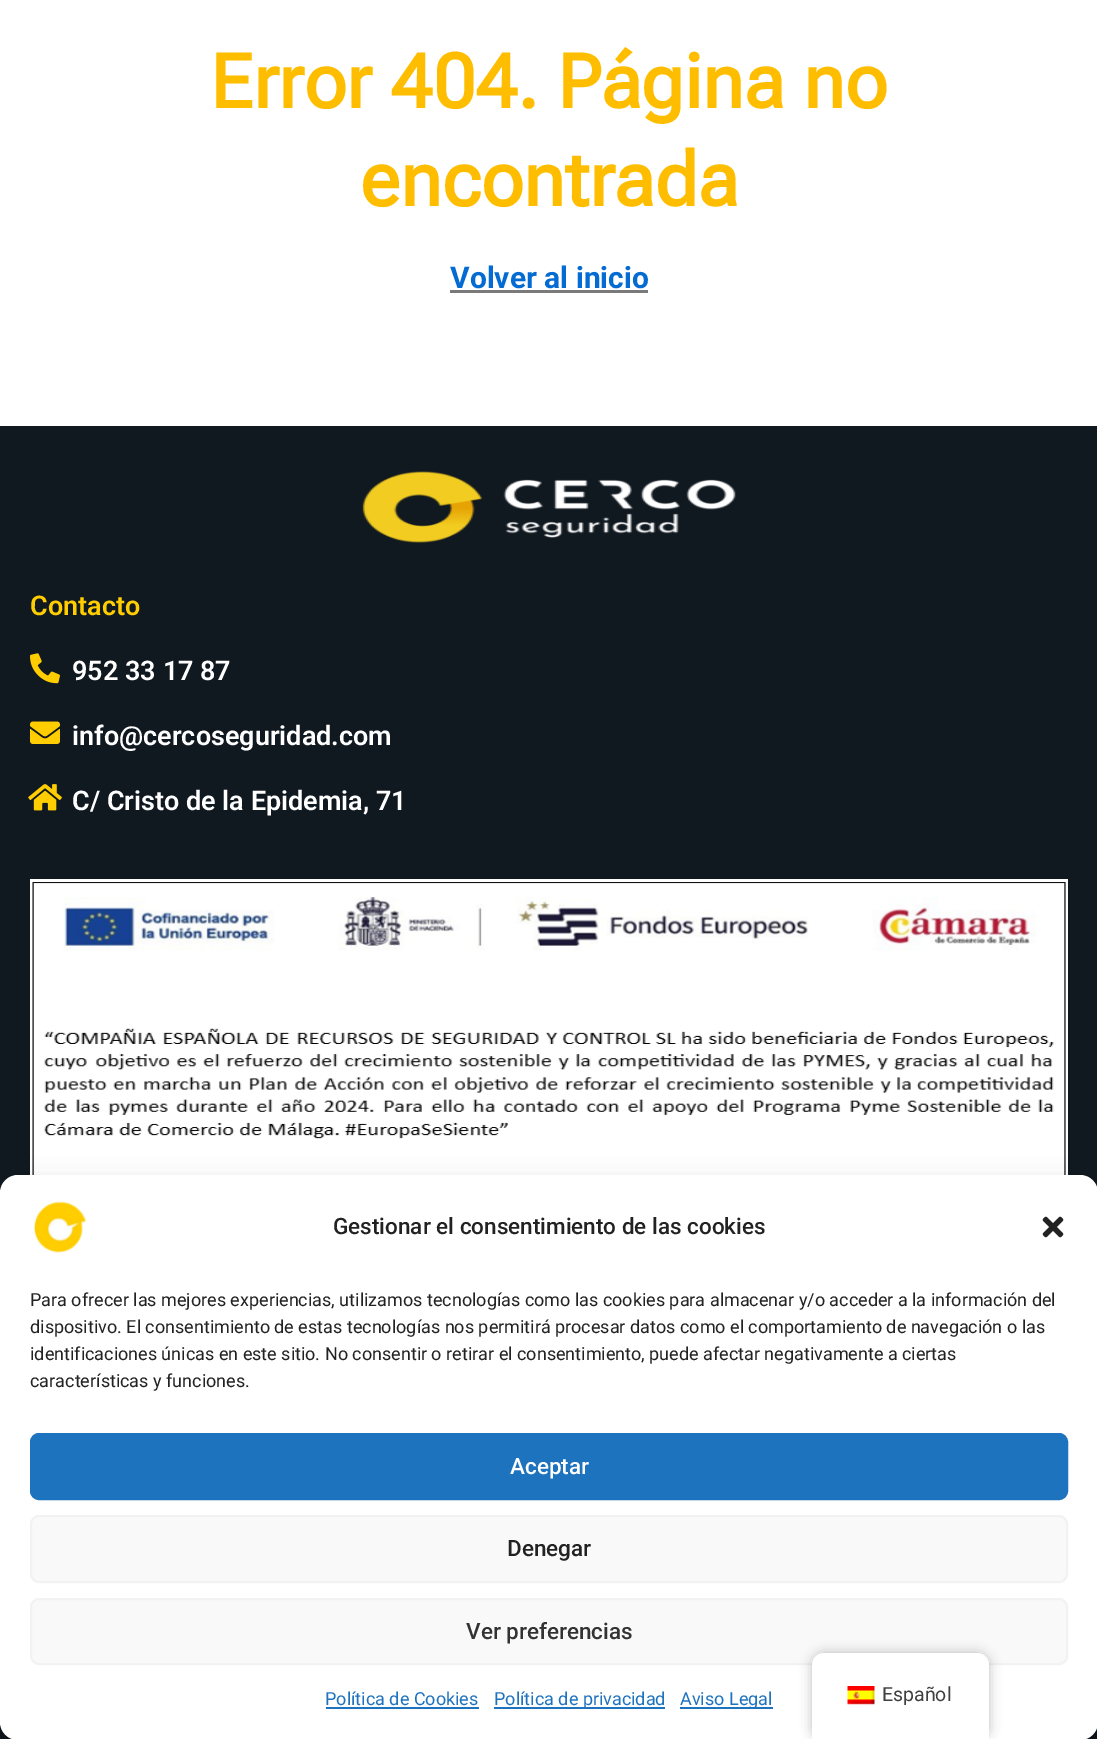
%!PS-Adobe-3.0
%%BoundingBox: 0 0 1097 1739
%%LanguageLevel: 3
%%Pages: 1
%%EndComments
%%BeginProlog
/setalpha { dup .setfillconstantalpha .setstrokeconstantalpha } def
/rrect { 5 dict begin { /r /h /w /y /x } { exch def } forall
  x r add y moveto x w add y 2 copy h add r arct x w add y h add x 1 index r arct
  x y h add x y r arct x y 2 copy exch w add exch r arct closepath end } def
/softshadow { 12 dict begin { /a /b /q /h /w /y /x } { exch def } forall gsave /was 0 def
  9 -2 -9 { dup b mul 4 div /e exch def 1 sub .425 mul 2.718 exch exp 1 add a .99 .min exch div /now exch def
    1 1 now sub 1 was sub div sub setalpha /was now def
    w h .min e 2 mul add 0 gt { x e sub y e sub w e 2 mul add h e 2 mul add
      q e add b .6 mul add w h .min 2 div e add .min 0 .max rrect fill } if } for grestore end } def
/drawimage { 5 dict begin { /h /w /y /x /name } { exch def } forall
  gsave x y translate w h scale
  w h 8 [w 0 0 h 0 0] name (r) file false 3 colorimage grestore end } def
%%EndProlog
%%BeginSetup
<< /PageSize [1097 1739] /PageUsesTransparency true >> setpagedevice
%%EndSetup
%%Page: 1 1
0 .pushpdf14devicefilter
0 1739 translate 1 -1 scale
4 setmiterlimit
1 setgray
0 0 1097 1739 rectfill
0.478 setgray
450 290 198 3 rectfill
0.063 0.094 0.125 setrgbcolor
0 426 1097 767 rectfill
(images/1.raw) 362 471 374 72 drawimage
(images/2.raw) 30 653 30 31 drawimage
(images/3.raw) 30 721 30 23 drawimage
(images/4.raw) 28 784 34 27 drawimage
(images/5.raw) 30 879 1038 296 drawimage
0 1722 1097 17 rectfill
0 setgray
0 1184 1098 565 18 4.5 0.23 softshadow
0 1190 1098 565 18 15 0.19 softshadow
1 setgray
0 1175 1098 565 18 rrect fill
(images/6.raw) 34 1201 53 52 drawimage
(images/7.raw) 1042 1216 22 22 drawimage
0.118 0.451 0.745 setrgbcolor
31 1434 1036 65 8 rrect gsave fill grestore
2 setlinewidth
stroke
0.976 setgray
31 1516 1036 66 8 rrect gsave fill grestore
0.949 setgray
stroke
0.976 setgray
31 1599 1036 65 8 rrect gsave fill grestore
0.949 setgray
stroke
0.118 0.451 0.745 setrgbcolor
326 1707 153 2 rectfill
494 1707 171 2 rectfill
680 1707 93 2 rectfill
0 setgray
812 1653 177 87 12 6 0.25 softshadow
1 setgray
newpath 824 1653 moveto 977 1653 lineto 983.5 1653 989 1658.5 989 1665 curveto 989 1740 lineto 812 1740 lineto 812 1665 lineto 812 1658.5 817.5 1653 824 1653 curveto closepath fill
(images/8.raw) 847 1686 28 19 drawimage
/RobotoFlex-Bold [75 0 0 -75 0 0] selectfont
1 0.741 0 setrgbcolor
210 108 moveto (Error 404. Página no) show
360 206 moveto (encontrada) show
/Roboto-Bold [30 0 0 -30 0 0] selectfont
0.016 0.42 0.824 setrgbcolor
450 288 moveto (Volver al inicio) show
/Roboto-SemiBold [27 0 0 -27 0 0] selectfont
1 0.804 0 setrgbcolor
30 615 moveto (Contacto) show
1 setgray
72 680 moveto (952 33 17 87) show
72 745 moveto (info@cercoseguridad.com) show
72 810 moveto (C/ Cristo de la Epidemia, 71) show
/Roboto-Medium [22.5 0 0 -22.5 0 0] selectfont
0.133 setgray
333 1234 moveto (Gestionar el consentimiento de las cookies) show
/Roboto-Regular [18 0 0 -18 0 0] selectfont
30 1306 moveto (Para ofrecer las mejores experiencias, utilizamos tecnologías como las cookies para almacenar y/o acceder a la información del) show
30 1333 moveto (dispositivo. El consentimiento de estas tecnologías nos permitirá procesar datos como el comportamiento de navegación o las) show
30 1360 moveto (identificaciones únicas en este sitio. No consentir o retirar el consentimiento, puede afectar negativamente a ciertas) show
30 1387 moveto (características y funciones.) show
/Roboto-Medium [22.5 0 0 -22.5 0 0] selectfont
1 setgray
510 1474 moveto (Aceptar) show
0.133 setgray
507 1556 moveto (Denegar) show
0.2 setgray
466 1639 moveto (Ver preferencias) show
/Roboto-Regular [18 0 0 -18 0 0] selectfont
0.118 0.451 0.745 setrgbcolor
325 1705 moveto (Política de Cookies) show
494 1705 moveto (Política de privacidad) show
680 1705 moveto (Aviso Legal) show
/Roboto-Regular [19.5 0 0 -19.5 0 0] selectfont
0.251 setgray
882 1701 moveto (Español) show
.poppdf14devicefilter showpage
%%EOF
